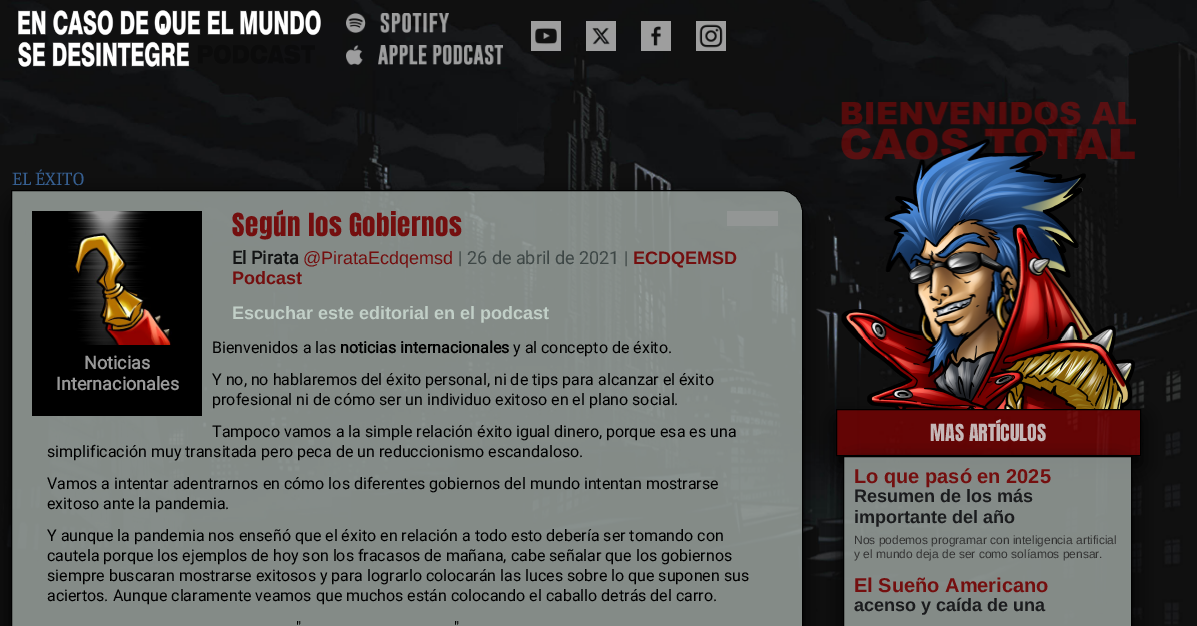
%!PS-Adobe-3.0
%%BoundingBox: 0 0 1197 626
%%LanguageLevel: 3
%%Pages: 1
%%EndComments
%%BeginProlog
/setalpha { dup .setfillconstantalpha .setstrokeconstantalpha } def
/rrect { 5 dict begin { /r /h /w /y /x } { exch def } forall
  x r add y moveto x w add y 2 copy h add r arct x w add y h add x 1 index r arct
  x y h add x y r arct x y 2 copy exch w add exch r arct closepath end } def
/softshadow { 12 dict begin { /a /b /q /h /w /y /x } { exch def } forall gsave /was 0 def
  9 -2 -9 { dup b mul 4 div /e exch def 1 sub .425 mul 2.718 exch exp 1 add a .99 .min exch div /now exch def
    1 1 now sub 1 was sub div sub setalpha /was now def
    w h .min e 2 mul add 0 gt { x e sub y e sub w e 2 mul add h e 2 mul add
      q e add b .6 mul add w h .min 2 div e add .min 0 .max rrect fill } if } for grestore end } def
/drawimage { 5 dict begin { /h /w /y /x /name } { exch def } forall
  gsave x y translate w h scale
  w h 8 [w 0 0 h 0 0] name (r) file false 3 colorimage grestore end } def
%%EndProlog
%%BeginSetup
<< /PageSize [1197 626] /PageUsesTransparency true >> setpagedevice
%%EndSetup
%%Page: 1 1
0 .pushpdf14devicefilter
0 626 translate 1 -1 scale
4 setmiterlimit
1 setgray
0 0 1197 626 rectfill
(images/1.raw) 0 0 1197 626 drawimage
(images/2.raw) 18 10 303 57 drawimage
(images/3.raw) 346 13 103 20 drawimage
(images/4.raw) 346 45 157 20 drawimage
(images/5.raw) 531 21 30 30 drawimage
(images/6.raw) 586 21 30 30 drawimage
(images/7.raw) 641 21 30 30 drawimage
(images/8.raw) 696 21 30 30 drawimage
gsave
newpath 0 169 moveto 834 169 lineto 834 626 lineto 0 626 lineto closepath 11 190 moveto 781 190 lineto 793 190 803 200 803 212 curveto 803 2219 lineto 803 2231 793 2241 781 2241 curveto 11 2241 lineto closepath eoclip newpath
0 setgray
11 200 792 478 22 10 1 softshadow
grestore
0.86 setalpha
0.592 0.624 0.608 setrgbcolor
newpath 11.5 190.5 moveto 781 190.5 lineto 793 190.5 802.5 200 802.5 212 curveto 802.5 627 lineto 802.5 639 793 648.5 781 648.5 curveto 11.5 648.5 lineto closepath fill
1 setalpha
0 setgray
newpath 11.5 190.5 moveto 781 190.5 lineto 793 190.5 802.5 200 802.5 212 curveto 802.5 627 lineto 802.5 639 793 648.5 781 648.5 curveto 11.5 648.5 lineto closepath stroke
0.576 0.588 0.584 setrgbcolor
727 211 51 15 rectfill
0 setgray
32 211 170 205 rectfill
(images/9.raw) 68 211 104 134 drawimage
(images/10.raw) 841 101 295 69 drawimage
(images/11.raw) 884 170 202 83 drawimage
(images/12.raw) 841 253 275 85 drawimage
gsave
newpath 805 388 moveto 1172 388 lineto 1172 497 lineto 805 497 lineto closepath 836 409 moveto 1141 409 lineto 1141 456 lineto 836 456 lineto closepath eoclip newpath
836 419 305 47 0 10 1 softshadow
grestore
(images/13.raw) 855 338 280 71 drawimage
0.7 setalpha
0.525 0 0 setrgbcolor
newpath 836.5 409.5 moveto 1140.5 409.5 lineto 1140.5 455.5 lineto 836.5 455.5 lineto closepath fill
1 setalpha
0 setgray
newpath 836.5 409.5 moveto 1140.5 409.5 lineto 1140.5 455.5 lineto 836.5 455.5 lineto closepath stroke
gsave
newpath 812 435 moveto 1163 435 lineto 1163 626 lineto 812 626 lineto closepath 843 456 moveto 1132 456 lineto 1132 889 lineto 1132 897.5 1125.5 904 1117 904 curveto 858 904 lineto 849.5 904 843 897.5 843 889 curveto closepath eoclip newpath
843 466 289 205 15 10 1 softshadow
grestore
0.86 setalpha
0.592 0.624 0.608 setrgbcolor
newpath 843.5 456.5 moveto 1131.5 456.5 lineto 1131.5 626.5 lineto 843.5 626.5 lineto closepath fill
1 setalpha
0 setgray
newpath 843.5 456.5 moveto 1131.5 456.5 lineto 1131.5 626.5 lineto 843.5 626.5 lineto closepath stroke
/Caladea-Regular [18.5 0 0 -18.5 0 0] selectfont
0.212 0.373 0.569 setrgbcolor
12 185 moveto (EL ÉXITO) show
/Anton-Regular [27 0 0 -27 0 0] selectfont
0.455 0.059 0.059 setrgbcolor
232 236 moveto 0.5 0 (Según los Gobiernos) ashow
/Roboto-Bold [18 0 0 -18 0 0] selectfont
0.075 0.082 0.082 setrgbcolor
232 264 moveto (El Pirata) show
/LiberationSans-Regular [18 0 0 -18 0 0] selectfont
0.455 0.059 0.059 setrgbcolor
303 264 moveto (@PirataEcdqemsd) show
/Roboto-Regular [18 0 0 -18 0 0] selectfont
0.243 0.278 0.275 setrgbcolor
458 264 moveto (| 26 de abril de 2021 |) show
/LiberationSans-Bold [18 0 0 -18 0 0] selectfont
0.455 0.059 0.059 setrgbcolor
633 264 moveto (ECDQEMSD) show
232 284 moveto (Podcast) show
0.757 0.812 0.78 setrgbcolor
232 319 moveto (Escuchar este editorial en el podcast) show
/Roboto-Regular [16 0 0 -16 0 0] selectfont
0 setgray
212 353 moveto (Bienvenidos a las) show
/Roboto-Bold [16 0 0 -16 0 0] selectfont
340 353 moveto (noticias internacionales) show
/Roboto-Regular [16 0 0 -16 0 0] selectfont
513 353 moveto (y al concepto de éxito.) show
/Roboto-Bold [18 0 0 -18 0 0] selectfont
0.6 setgray
84 369 moveto (Noticias) show
56 390 moveto (Internacionales) show
/Roboto-Regular [16 0 0 -16 0 0] selectfont
0 setgray
212 385 moveto (Y no, no hablaremos del éxito personal, ni de tips para alcanzar el éxito) show
212 405 moveto (profesional ni de cómo ser un individuo exitoso en el plano social.) show
212 437 moveto (Tampoco vamos a la simple relación éxito igual dinero, porque esa es una) show
47 457 moveto (simplificación muy transitada pero peca de un reduccionismo escandaloso.) show
47 489 moveto (Vamos a intentar adentrarnos en cómo los diferentes gobiernos del mundo intentan mostrarse) show
47 509 moveto (exitoso ante la pandemia.) show
47 541 moveto (Y aunque la pandemia nos enseñó que el éxito en relación a todo esto debería ser tomando con) show
47 561 moveto (cautela porque los ejemplos de hoy son los fracasos de mañana, cabe señalar que los gobiernos) show
47 581 moveto (siempre buscaran mostrarse exitosos y para lograrlo colocarán las luces sobre lo que suponen sus) show
47 601 moveto (aciertos. Aunque claramente veamos que muchos están colocando el caballo detrás del carro.) show
296 633 moveto (") show
454 633 moveto (") show
/Anton-Regular [20 0 0 -20 0 0] selectfont
0.773 0.718 0.718 setrgbcolor
930 441 moveto (MAS ARTÍCULOS) show
/LiberationSans-Bold [20 0 0 -20 0 0] selectfont
0.455 0.059 0.059 setrgbcolor
854 483 moveto (Lo que pasó en 2025) show
/LiberationSans-Bold [18 0 0 -18 0 0] selectfont
0.106 0.11 0.118 setrgbcolor
854 502 moveto (Resumen de los más) show
854 523 moveto (importante del año) show
/LiberationSans-Regular [12 0 0 -12 0 0] selectfont
0.2 setgray
854 544 moveto (Nos podemos programar con inteligencia artificial) show
854 558 moveto (y el mundo deja de ser como solíamos pensar.) show
/LiberationSans-Bold [20 0 0 -20 0 0] selectfont
0.455 0.059 0.059 setrgbcolor
854 592 moveto (El Sueño Americano) show
/LiberationSans-Bold [18 0 0 -18 0 0] selectfont
0.106 0.11 0.118 setrgbcolor
854 611 moveto (acenso y caída de una) show
.poppdf14devicefilter showpage
%%EOF
